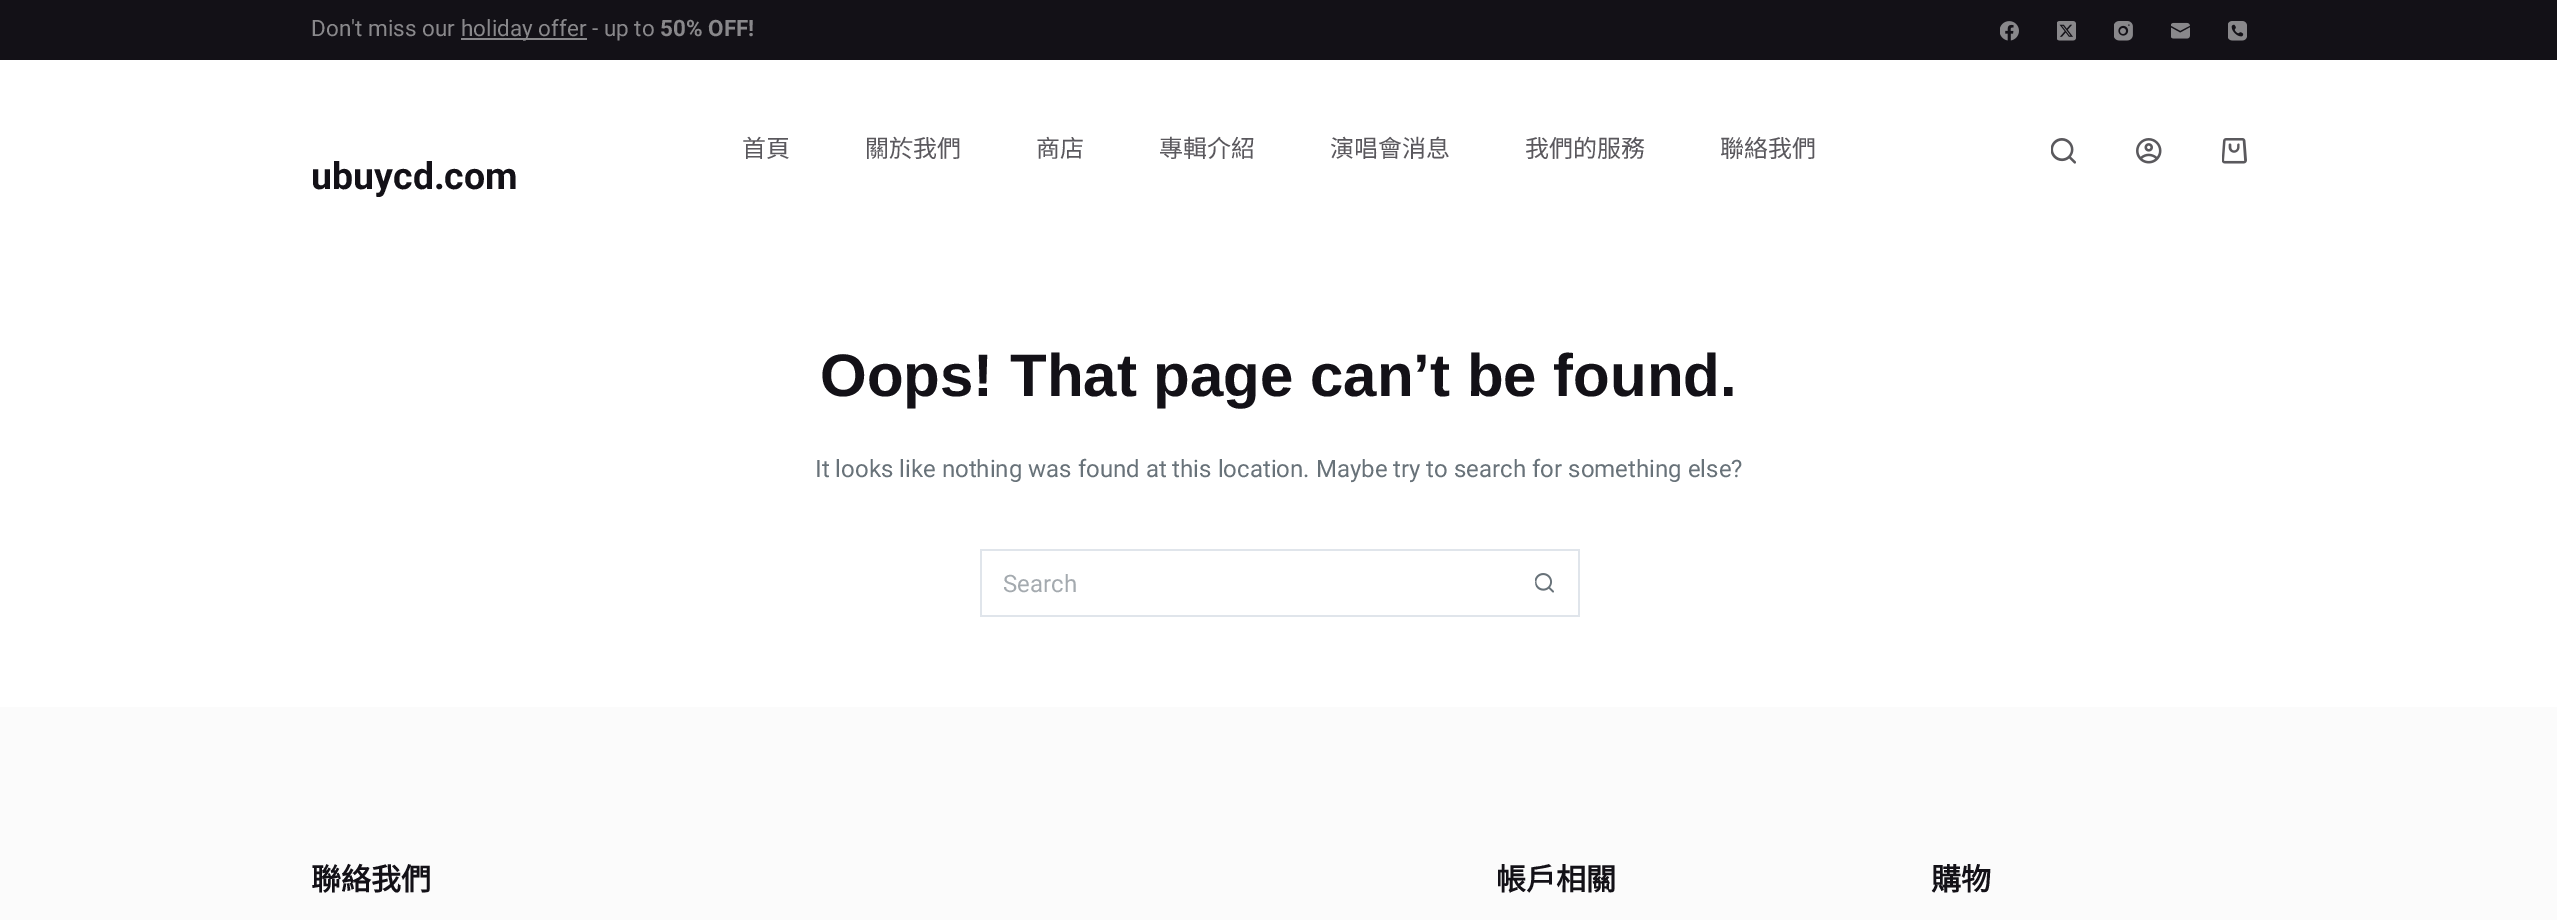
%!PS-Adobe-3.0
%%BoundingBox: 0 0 2557 920
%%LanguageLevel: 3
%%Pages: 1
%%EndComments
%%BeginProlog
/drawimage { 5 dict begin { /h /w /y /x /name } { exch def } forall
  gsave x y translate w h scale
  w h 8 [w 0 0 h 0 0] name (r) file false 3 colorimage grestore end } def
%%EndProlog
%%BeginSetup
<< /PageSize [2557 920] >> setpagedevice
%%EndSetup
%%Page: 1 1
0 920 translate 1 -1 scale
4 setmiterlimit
1 setgray
0 0 2557 920 rectfill
0.075 0.067 0.09 setrgbcolor
0 0 2557 60 rectfill
0.537 0.533 0.545 setrgbcolor
461 38 126 2 rectfill
(images/1.raw) 2000 21 19 20 drawimage
(images/2.raw) 2057 21 19 20 drawimage
(images/3.raw) 2114 21 19 20 drawimage
(images/4.raw) 2171 22 19 17 drawimage
(images/5.raw) 2228 21 19 20 drawimage
(images/6.raw) 2051 138 25 26 drawimage
(images/7.raw) 2136 138 26 26 drawimage
(images/8.raw) 2222 138 25 26 drawimage
0.878 0.898 0.922 setrgbcolor
980 549 600 2 rectfill
980 615 532 2 rectfill
980 549 2 68 rectfill
1578 549 2 68 rectfill
1512 615 68 2 rectfill
(images/9.raw) 1535 573 19 20 drawimage
1 setgray
2.2 setlinewidth
1 setlinecap
newpath 1543 594.5 moveto 1537 593.5 1533 587.5 1534 581.5 curveto stroke
0.984 setgray
0 707 2557 213 rectfill
/Roboto-Regular [22.5 0 0 -22.5 0 0] selectfont
0.537 0.533 0.545 setrgbcolor
311 36 moveto (Don't miss our) show
461 36 moveto (holiday offer) show
592 36 moveto (- up to) show
/Roboto-Bold [22.5 0 0 -22.5 0 0] selectfont
660 36 moveto (50% OFF!) show
/NotoSansCJKHK-Regular [24 0 0 -24 0 0] selectfont
0.353 0.345 0.365 setrgbcolor
742 157 moveto (首頁) show
865 157 moveto (關於我們) show
1036 157 moveto (商店) show
1159 157 moveto (專輯介紹) show
1330 157 moveto (演唱會消息) show
1525 157 moveto (我們的服務) show
1720 157 moveto (聯絡我們) show
/Roboto-Bold [37.5 0 0 -37.5 0 0] selectfont
0.075 0.067 0.09 setrgbcolor
311 189 moveto (ubuycd.com) show
/LiberationSans-Bold [60 0 0 -60 0 0] selectfont
820 396 moveto (Oops! That page can’t be found.) show
/Roboto-Regular [24 0 0 -24 0 0] selectfont
0.408 0.447 0.475 setrgbcolor
815 477 moveto (It looks like nothing was found at this location. Maybe try to search for something else?) show
0.643 0.667 0.686 setrgbcolor
1003 592 moveto (Search) show
/NotoSansCJKHK-Bold [30 0 0 -30 0 0] selectfont
0.075 0.067 0.09 setrgbcolor
311 890 moveto (聯絡我們) show
1496 890 moveto (帳戶相關) show
1931 890 moveto (購物) show
showpage
%%EOF
